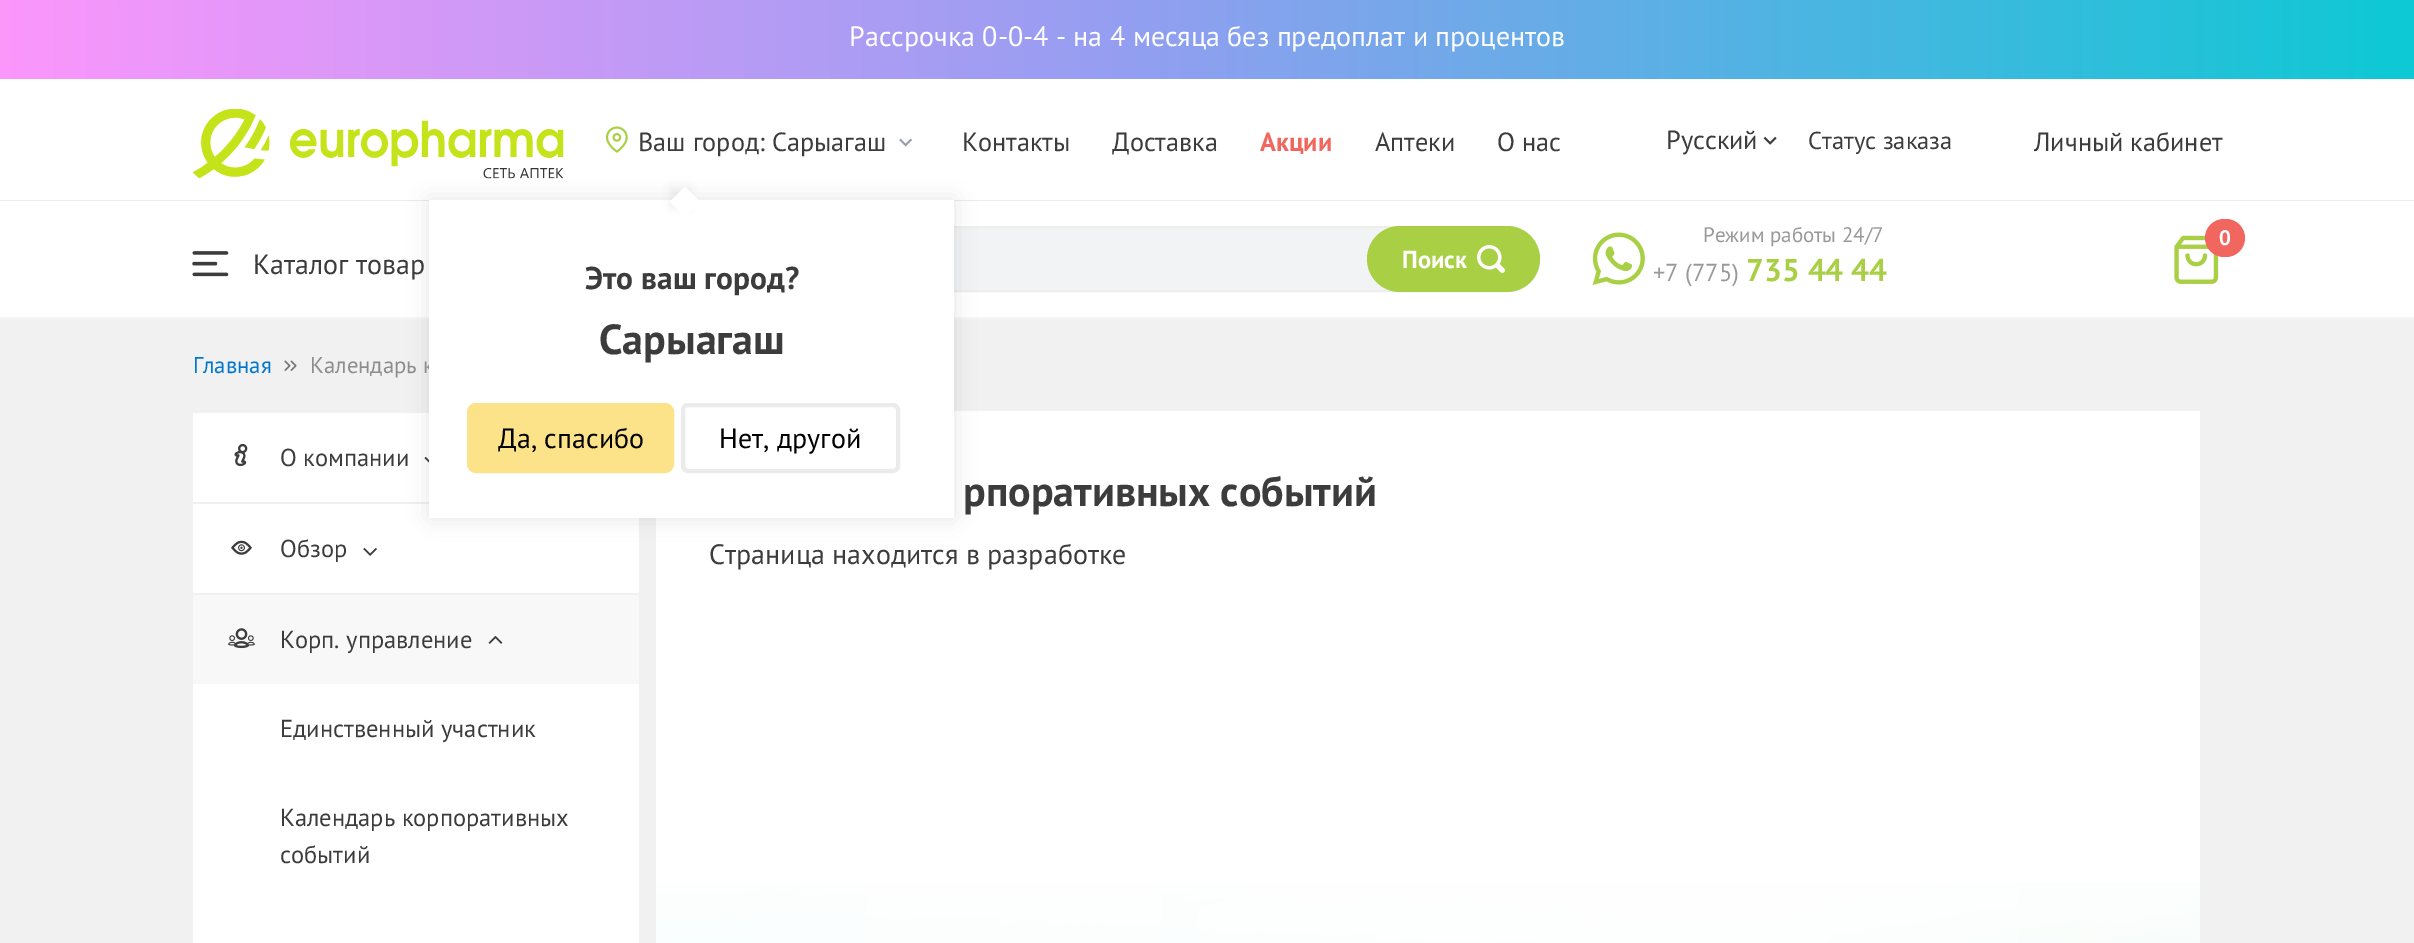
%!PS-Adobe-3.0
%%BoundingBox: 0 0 2414 943
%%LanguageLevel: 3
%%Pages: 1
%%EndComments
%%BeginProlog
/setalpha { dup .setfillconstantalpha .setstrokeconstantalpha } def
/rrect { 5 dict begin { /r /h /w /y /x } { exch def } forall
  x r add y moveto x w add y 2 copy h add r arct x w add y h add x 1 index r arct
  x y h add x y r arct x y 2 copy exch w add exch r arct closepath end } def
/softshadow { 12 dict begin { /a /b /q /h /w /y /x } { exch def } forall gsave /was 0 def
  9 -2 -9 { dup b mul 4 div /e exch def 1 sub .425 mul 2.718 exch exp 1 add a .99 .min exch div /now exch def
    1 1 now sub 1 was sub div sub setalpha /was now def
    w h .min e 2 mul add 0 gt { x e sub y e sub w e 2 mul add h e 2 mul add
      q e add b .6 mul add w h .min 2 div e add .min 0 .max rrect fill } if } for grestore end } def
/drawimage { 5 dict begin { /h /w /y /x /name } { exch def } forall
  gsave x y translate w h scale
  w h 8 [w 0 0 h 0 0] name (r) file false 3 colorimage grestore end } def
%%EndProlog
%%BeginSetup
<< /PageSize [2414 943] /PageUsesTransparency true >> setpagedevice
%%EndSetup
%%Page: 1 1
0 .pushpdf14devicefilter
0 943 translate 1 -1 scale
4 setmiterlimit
0.945 setgray
0 0 2414 943 rectfill
gsave newpath 0 0 moveto 2414 0 lineto 2414 79 lineto 0 79 lineto closepath clip newpath
<< /ShadingType 2 /ColorSpace /DeviceRGB /Coords [0 41 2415 38] /Extend [true true] /Function << /FunctionType 3 /Domain [0 1] /Functions [<< /FunctionType 2 /Domain [0 1] /C0 [0.988 0.588 0.988] /C1 [0.584 0.62 0.945] /N 1 >> << /FunctionType 2 /Domain [0 1] /C0 [0.584 0.62 0.945] /C1 [0.051 0.788 0.835] /N 1 >>] /Bounds [0.46] /Encode [0 1 0 1] >> >> shfill grestore
1 setgray
0 79 2414 121 rectfill
0.922 setgray
0 200 2414 1 rectfill
(images/1.raw) 193 109 371 70 drawimage
(images/2.raw) 605 126 23 27 drawimage
(images/3.raw) 899 138 13 9 drawimage
1 setgray
0 201 2414 116 rectfill
0.965 setgray
0 317 2414 2 rectfill
0.945 0.953 0.957 setrgbcolor
596 227 943 64 32 rrect gsave fill grestore
0.933 setgray
2 setlinewidth
stroke
1 setgray
193 413 446 530 rectfill
(images/11.raw) 424 456 5 7 drawimage
0.941 setgray
193 502 236 2 rectfill
1 setgray
656 411 1544 532 rectfill
0 setgray
429 200 525 318 0 10.5 0.1 softshadow
(images/4.raw) 1763 136 14 9 drawimage
(images/5.raw) 1592 232 53 53 drawimage
(images/6.raw) 2174 235 45 49 drawimage
0.945 0.4 0.369 setrgbcolor
2205 219 40 38 19 rrect fill
(images/7.raw) 192 251 37 26 drawimage
0.663 0.812 0.267 setrgbcolor
1367 226 173 66 33 rrect fill
(images/8.raw) 1477 245 28 28 drawimage
(images/9.raw) 284 360 13 11 drawimage
(images/10.raw) 234 443 14 24 drawimage
(images/12.raw) 231 540 21 15 drawimage
(images/13.raw) 363 547 14 9 drawimage
0.976 0.973 0.973 setrgbcolor
193 595 446 89 rectfill
0.941 setgray
193 593 446 2 rectfill
(images/14.raw) 228 628 27 21 drawimage
(images/15.raw) 488 635 15 9 drawimage
(images/16.raw) 656 883 1544 60 drawimage
/PTSans-Regular [28 0 0 -28 0 0] selectfont
1 setgray
849 46 moveto (Рассрочка 0-0-4 - на 4 месяца без предоплат и процентов) show
/PTSans-Regular [26.25 0 0 -26.25 0 0] selectfont
0.235 setgray
638 151 moveto (Ваш город: Сарыагаш) show
962 151 moveto (Контакты) show
1112 151 moveto (Доставка) show
/PTSans-Bold [26.25 0 0 -26.25 0 0] selectfont
0.945 0.404 0.369 setrgbcolor
1260 151 moveto (Акции) show
/PTSans-Regular [26.25 0 0 -26.25 0 0] selectfont
0.235 setgray
1375 151 moveto (Аптеки) show
1497 151 moveto (О нас) show
1666 149 moveto (Русский) show
/PTSans-Regular [24.5 0 0 -24.5 0 0] selectfont
1808 149 moveto (Статус заказа) show
/PTSans-Regular [26.25 0 0 -26.25 0 0] selectfont
2034 151 moveto (Личный кабинет) show
/PTSans-Regular [21 0 0 -21 0 0] selectfont
0.6 setgray
1703 242 moveto (Режим работы 24/7) show
/PTSans-Regular [24.5 0 0 -24.5 0 0] selectfont
1653 281 moveto (+7 \(775\)) show
/PTSans-Bold [31.5 0 0 -31.5 0 0] selectfont
0.663 0.812 0.267 setrgbcolor
1746 281 moveto (735 44 44) show
/PTSans-Bold [21 0 0 -21 0 0] selectfont
1 setgray
2219 245 moveto (0) show
/PTSans-Regular [28 0 0 -28 0 0] selectfont
0.235 setgray
253 274 moveto (Каталог товар) show
/PTSans-Bold [24.5 0 0 -24.5 0 0] selectfont
1 setgray
1402 268 moveto (Поиск) show
/PTSans-Regular [22.75 0 0 -22.75 0 0] selectfont
0 0.467 0.8 setrgbcolor
193 373 moveto (Главная) show
0.553 setgray
310 373 moveto (Календарь к) show
1 setgray
429 200 525 318 rectfill
0 setgray
670 187 21 21 0 4.5 0.06 softshadow
1 setgray
newpath 685 186.5 moveto 700 201.5 lineto 685 216 lineto 670 201.5 lineto closepath fill
0.922 setgray
4 setlinewidth
683 405 215 66 5 rrect stroke
/PTSans-Regular [28 0 0 -28 0 0] selectfont
0 setgray
719 448 moveto (Нет, другой) show
0.988 0.89 0.537 setrgbcolor
469 405 203 66 7 rrect gsave fill grestore
stroke
0 setgray
498 448 moveto (Да, спасибо) show
/PTSans-Bold [42 0 0 -42 0 0] selectfont
0.235 setgray
599 354 moveto (Сарыагаш) show
/PTSans-Bold [31.5 0 0 -31.5 0 0] selectfont
585 289 moveto (Это ваш город?) show
/PTSans-Regular [24.5 0 0 -24.5 0 0] selectfont
280 466 moveto (О компании) show
280 557 moveto (Обзор) show
280 648 moveto (Корп. управление) show
280 737 moveto (Единственный участник) show
280 826 moveto (Календарь корпоративных) show
280 863 moveto (событий) show
/PTSans-Bold [42 0 0 -42 0 0] selectfont
963 506 moveto (рпоративных событий) show
/PTSans-Regular [28 0 0 -28 0 0] selectfont
709 564 moveto (Страница находится в разработке) show
.poppdf14devicefilter showpage
%%EOF
